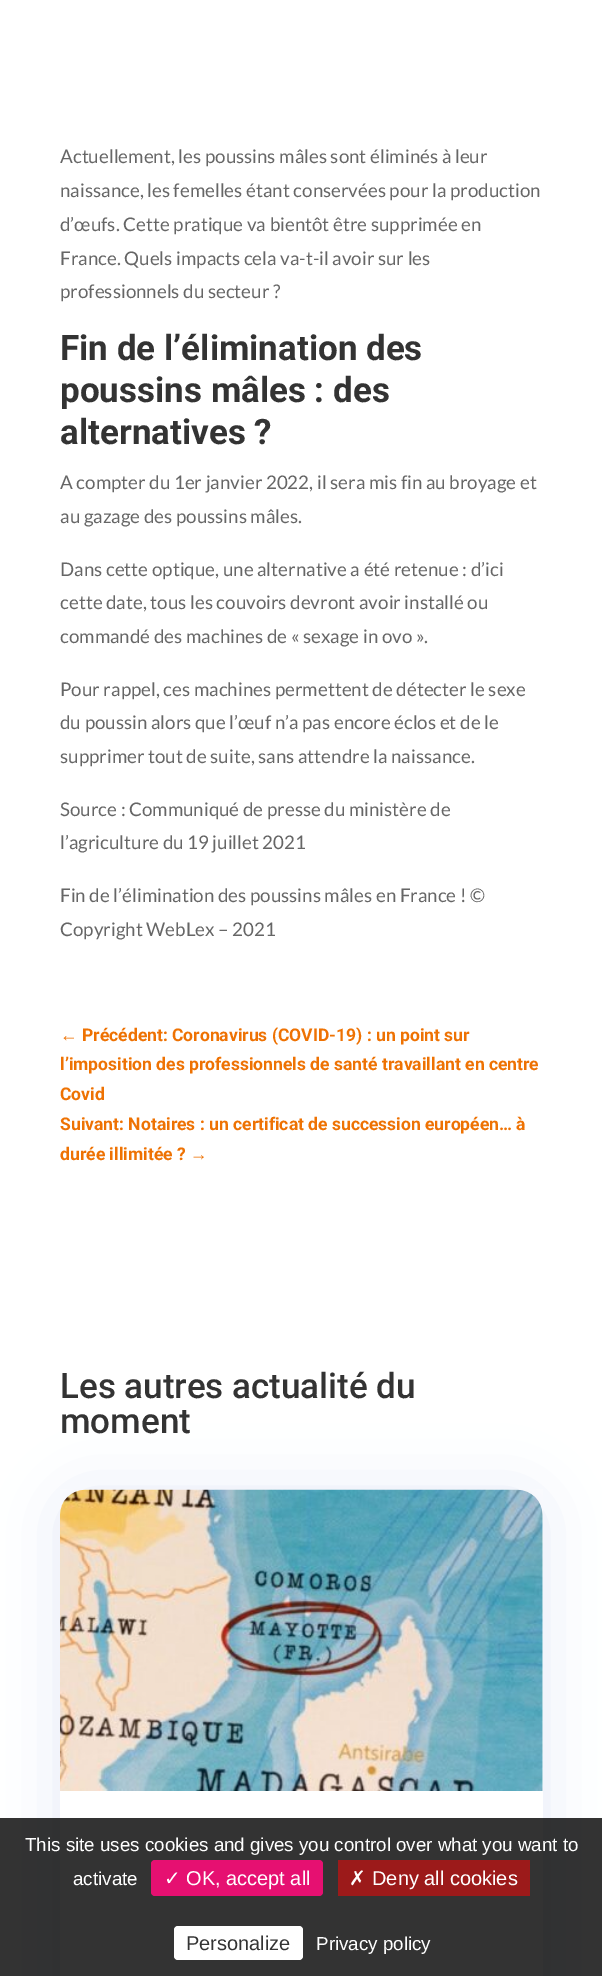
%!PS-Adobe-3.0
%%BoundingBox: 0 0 602 1976
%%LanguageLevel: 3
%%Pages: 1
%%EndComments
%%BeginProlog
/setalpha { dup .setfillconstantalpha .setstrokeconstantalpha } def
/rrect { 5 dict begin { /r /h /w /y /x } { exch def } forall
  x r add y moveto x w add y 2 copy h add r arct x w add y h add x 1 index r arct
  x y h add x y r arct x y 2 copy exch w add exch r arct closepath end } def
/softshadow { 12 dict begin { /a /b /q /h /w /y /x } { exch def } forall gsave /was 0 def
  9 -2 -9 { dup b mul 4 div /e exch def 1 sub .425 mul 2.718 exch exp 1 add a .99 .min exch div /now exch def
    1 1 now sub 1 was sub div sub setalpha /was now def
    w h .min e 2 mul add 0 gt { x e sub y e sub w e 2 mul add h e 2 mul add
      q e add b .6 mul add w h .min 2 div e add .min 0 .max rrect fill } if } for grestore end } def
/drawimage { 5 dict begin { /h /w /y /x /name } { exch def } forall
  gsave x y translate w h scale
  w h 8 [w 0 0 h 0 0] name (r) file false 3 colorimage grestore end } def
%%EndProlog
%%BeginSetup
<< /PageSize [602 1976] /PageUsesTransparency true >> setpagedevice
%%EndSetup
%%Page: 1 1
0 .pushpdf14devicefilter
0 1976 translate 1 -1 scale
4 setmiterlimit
1 setgray
0 0 602 1976 rectfill
0.431 0.51 0.816 setrgbcolor
60 1493 483 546 25 31 0.18 softshadow
1 setgray
60 1490 483 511 25 rrect fill
(images/1.raw) 60 1489 483 302 drawimage
0.8 setalpha
0 setgray
0 1818 602 158 rectfill
1 setalpha
0.902 0.063 0.443 setrgbcolor
151 1860 172 36 4 rrect fill
0.612 0.102 0.102 setrgbcolor
338 1860 192 36 rectfill
1 setgray
174 1926 129 34 4 rrect fill
/Lato-Regular [18.75 0 0 -18.75 0 0] selectfont
0.4 setgray
60 163 moveto (Actuellement, les poussins mâles sont éliminés à leur) show
60 197 moveto (naissance, les femelles étant conservées pour la production) show
60 231 moveto (d’œufs. Cette pratique va bientôt être supprimée en) show
60 265 moveto (France. Quels impacts cela va-t-il avoir sur les) show
60 298 moveto (professionnels du secteur ?) show
/Roboto-Bold [35 0 0 -35 0 0] selectfont
0.2 setgray
60 360 moveto (Fin de l’élimination des) show
60 402 moveto (poussins mâles : des) show
60 444 moveto (alternatives ?) show
/Lato-Regular [18.75 0 0 -18.75 0 0] selectfont
0.4 setgray
60 489 moveto (A compter du 1er janvier 2022, il sera mis fin au broyage et) show
60 523 moveto (au gazage des poussins mâles.) show
60 576 moveto (Dans cette optique, une alternative a été retenue : d’ici) show
60 609 moveto (cette date, tous les couvoirs devront avoir installé ou) show
60 643 moveto (commandé des machines de « sexage in ovo ».) show
60 696 moveto (Pour rappel, ces machines permettent de détecter le sexe) show
60 729 moveto (du poussin alors que l’œuf n’a pas encore éclos et de le) show
60 763 moveto (supprimer tout de suite, sans attendre la naissance.) show
60 816 moveto (Source : Communiqué de presse du ministère de) show
60 849 moveto (l’agriculture du 19 juillet 2021) show
60 902 moveto (Fin de l’élimination des poussins mâles en France ! ©) show
60 936 moveto (Copyright WebLex – 2021) show
/LiberationSans-Bold [17.5 0 0 -17.5 0 0] selectfont
0.933 0.447 0.012 setrgbcolor
60 1041 moveto (←) show
/Roboto-Bold [17.5 0 0 -17.5 0 0] selectfont
82 1041 moveto (Précédent: Coronavirus \(COVID-19\) : un point sur) show
60 1070 moveto (l’imposition des professionnels de santé travaillant en centre) show
60 1100 moveto (Covid) show
60 1130 moveto (Suivant: Notaires : un certificat de succession européen… à) show
60 1160 moveto (durée illimitée ?) show
/LiberationSans-Bold [17.5 0 0 -17.5 0 0] selectfont
190 1160 moveto (→) show
/Roboto-Medium [35 0 0 -35 0 0] selectfont
0.2 setgray
60 1398 moveto (Les autres actualité du) show
60 1433 moveto (moment) show
/LiberationSans-Regular [18.75 0 0 -18.75 0 0] selectfont
1 setgray
25 1851 moveto (This site uses cookies and gives you control over what you want to) show
73 1885 moveto (activate) show
/DejaVuSans-Regular [20 0 0 -20 0 0] selectfont
164 1885 moveto (✓) show
/LiberationSans-Regular [20 0 0 -20 0 0] selectfont
186 1885 moveto (OK, accept all) show
/DejaVuSans-Regular [20 0 0 -20 0 0] selectfont
349 1885 moveto (✗) show
/LiberationSans-Regular [20 0 0 -20 0 0] selectfont
372 1885 moveto (Deny all cookies) show
0.2 setgray
186 1950 moveto (Personalize) show
/LiberationSans-Regular [18.75 0 0 -18.75 0 0] selectfont
1 setgray
316 1950 moveto (Privacy policy) show
.poppdf14devicefilter showpage
%%EOF
